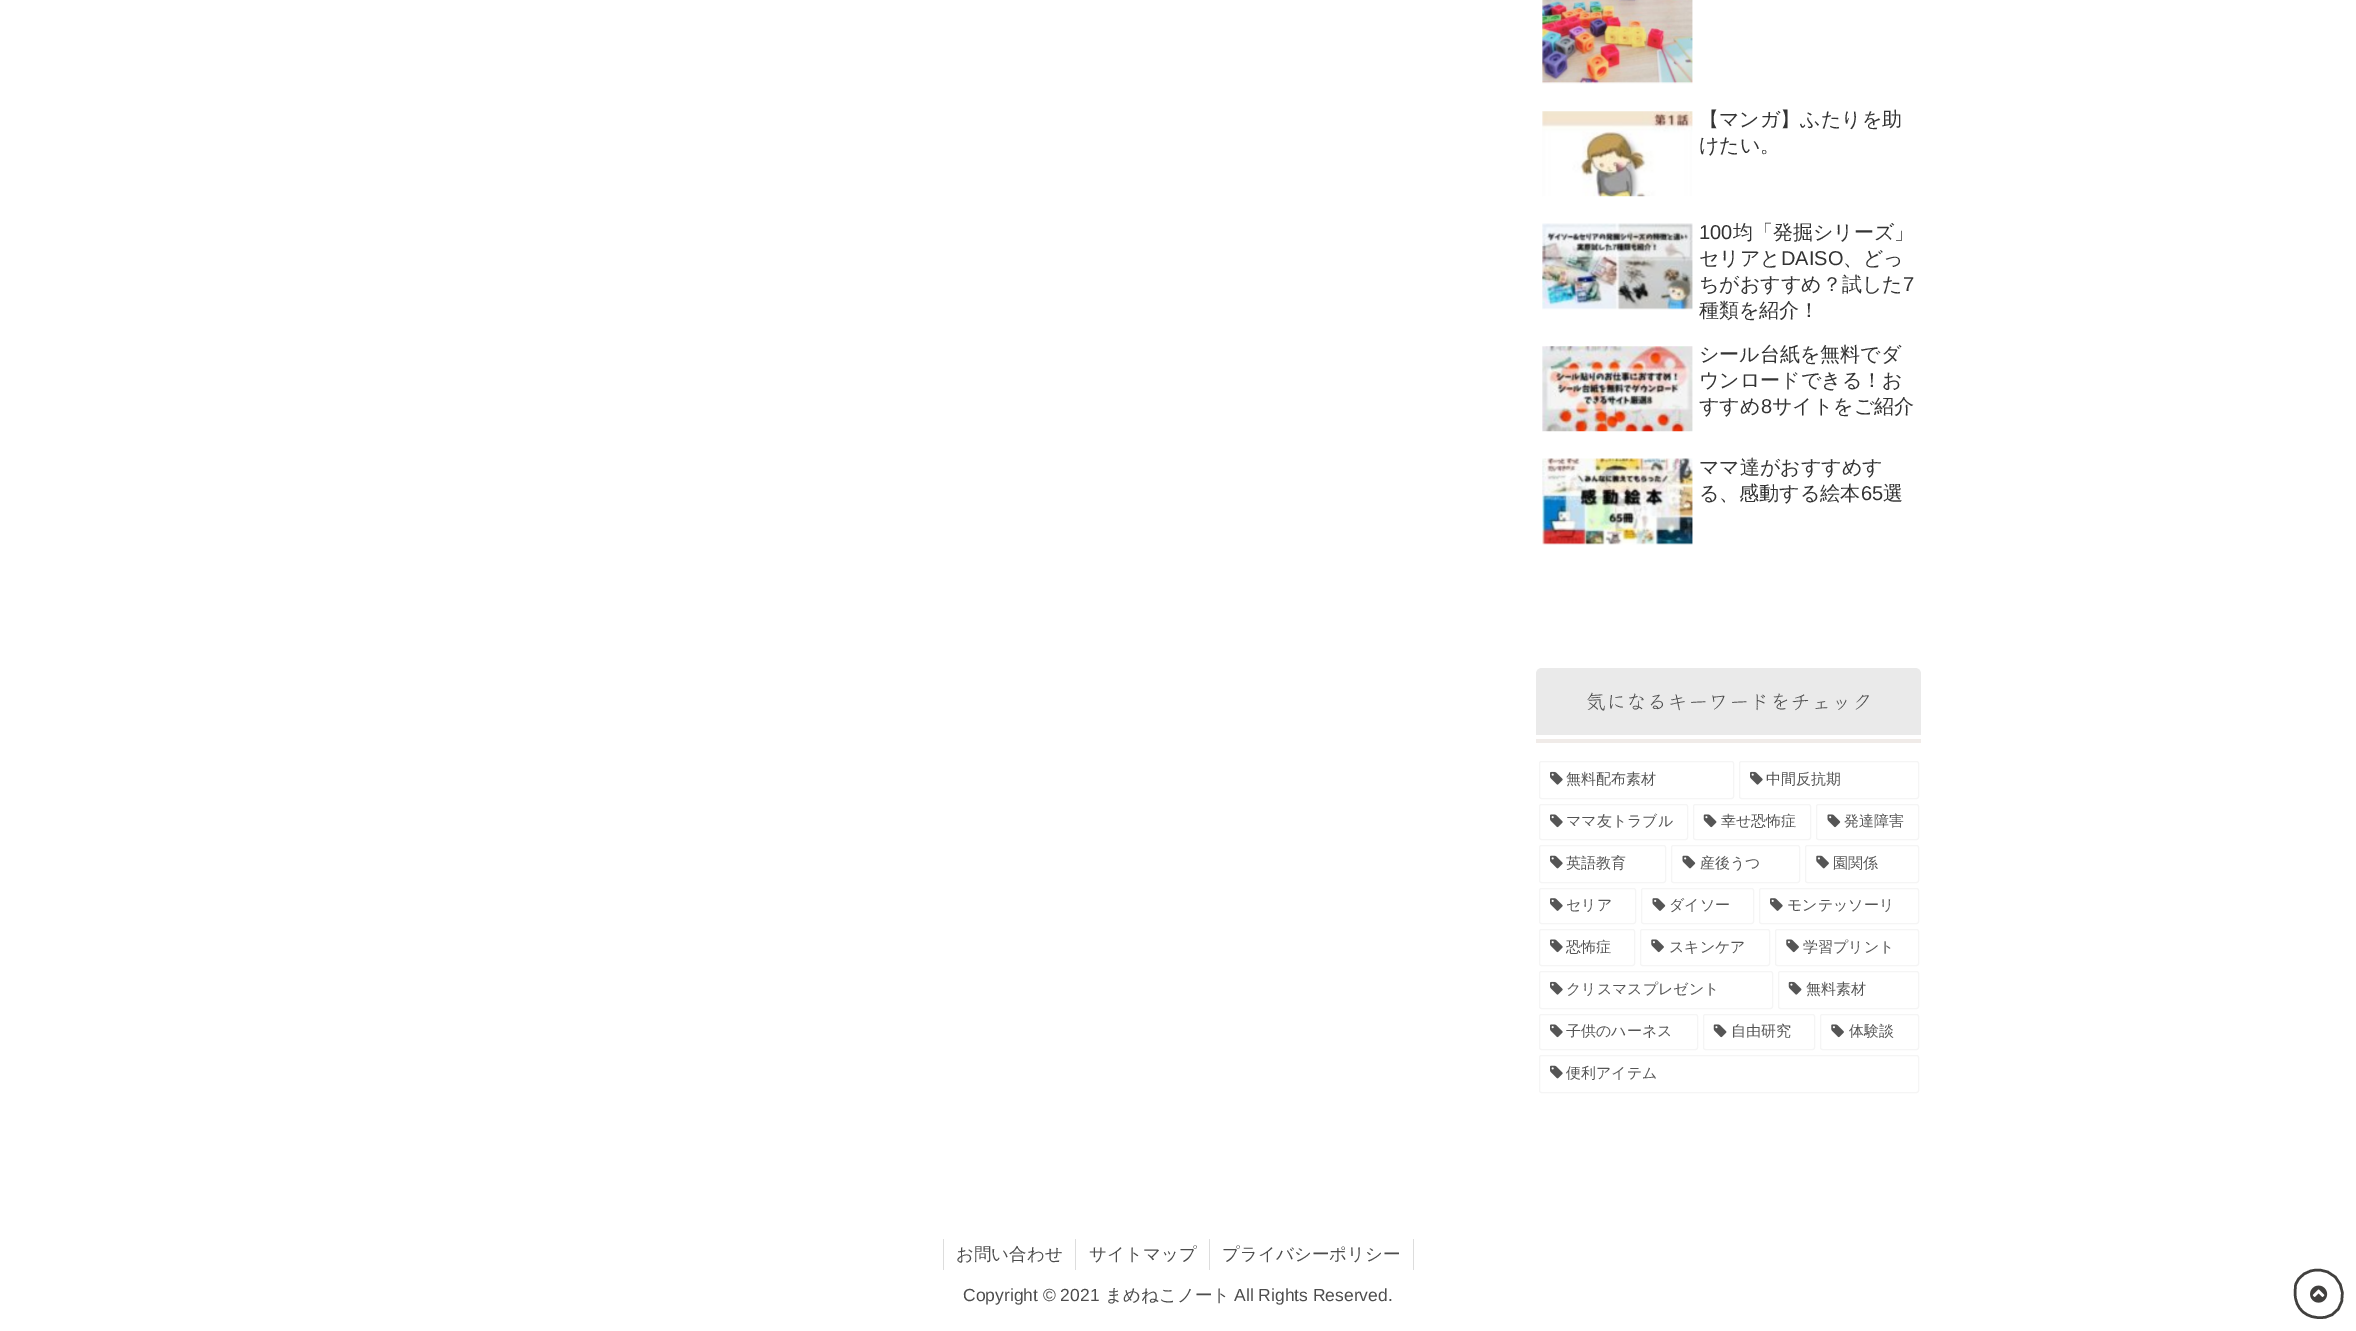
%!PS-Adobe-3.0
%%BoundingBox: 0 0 2356 1331
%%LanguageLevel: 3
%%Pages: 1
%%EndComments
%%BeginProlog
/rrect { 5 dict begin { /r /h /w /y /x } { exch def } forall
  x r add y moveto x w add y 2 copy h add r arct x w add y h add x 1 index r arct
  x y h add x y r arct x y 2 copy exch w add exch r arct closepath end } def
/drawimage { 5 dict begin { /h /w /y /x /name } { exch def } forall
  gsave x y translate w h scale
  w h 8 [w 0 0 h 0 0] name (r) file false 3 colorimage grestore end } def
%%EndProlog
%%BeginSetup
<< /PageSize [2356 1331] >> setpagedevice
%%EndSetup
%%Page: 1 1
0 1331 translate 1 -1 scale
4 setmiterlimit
1 setgray
0 0 2356 1331 rectfill
(images/1.raw) 1542 0 151 84 drawimage
(images/2.raw) 1542 111 151 86 drawimage
(images/3.raw) 1542 223 151 87 drawimage
(images/4.raw) 1542 346 151 86 drawimage
(images/5.raw) 1542 458 151 87 drawimage
0.941 0.922 0.91 setrgbcolor
newpath 1536 675 moveto 1536 743 lineto 1921 743 lineto 1921 739 lineto 1536 739 lineto closepath fill
0.918 setgray
newpath 1542 668 moveto 1915 668 lineto 1918.5 668 1921 670.5 1921 674 curveto 1921 739 lineto 1536 739 lineto 1536 674 lineto 1536 670.5 1538.5 668 1542 668 curveto closepath fill
1 setgray
1536 735 385 4 rectfill
0.961 setgray
1539.5 761.5 194 37 2 rrect stroke
(images/6.raw) 1550 771 13 14 drawimage
1739.5 761.5 179 37 2 rrect stroke
(images/6.raw) 1750 771 13 14 drawimage
1539.5 804.5 148 35 2 rrect stroke
(images/7.raw) 1550 814 13 14 drawimage
1693.5 804.5 117 35 2 rrect stroke
(images/8.raw) 1703 814 14 14 drawimage
1816.5 804.5 102 35 2 rrect stroke
(images/9.raw) 1827 814 14 14 drawimage
1539.5 845.5 126 37 2 rrect stroke
(images/10.raw) 1550 855 13 14 drawimage
1671.5 845.5 128 37 2 rrect stroke
(images/11.raw) 1682 855 14 14 drawimage
1805.5 845.5 113 37 2 rrect stroke
(images/12.raw) 1816 855 13 14 drawimage
1539.5 888.5 96 35 2 rrect stroke
(images/13.raw) 1550 898 13 13 drawimage
1641.5 888.5 112 35 2 rrect stroke
(images/14.raw) 1652 898 14 13 drawimage
1759.5 888.5 159 35 2 rrect stroke
(images/13.raw) 1770 898 13 13 drawimage
1539.5 929.5 95 36 2 rrect stroke
(images/7.raw) 1550 939 13 14 drawimage
1640.5 929.5 129 36 2 rrect stroke
(images/15.raw) 1651 939 13 14 drawimage
1775.5 929.5 143 36 2 rrect stroke
(images/15.raw) 1786 939 13 14 drawimage
1539.5 971.5 233 37 2 rrect stroke
(images/6.raw) 1550 981 13 14 drawimage
1778.5 971.5 140 37 2 rrect stroke
(images/16.raw) 1788 981 14 14 drawimage
1539.5 1014.5 158 35 2 rrect stroke
(images/7.raw) 1550 1024 13 14 drawimage
1703.5 1014.5 111 35 2 rrect stroke
(images/8.raw) 1713 1024 14 14 drawimage
1820.5 1014.5 98 35 2 rrect stroke
(images/15.raw) 1831 1024 13 14 drawimage
1539.5 1055.5 379 37 2 rrect stroke
(images/10.raw) 1550 1065 13 14 drawimage
0.867 setgray
943 1239 1 31 rectfill
1075 1239 1 31 rectfill
1413 1239 1 31 rectfill
1209 1239 1 31 rectfill
0.255 0.251 0.243 setrgbcolor
2.5 setlinewidth
newpath 2317.5 1270 moveto 2348.5 1270 2351 1315 2323 1317.5 curveto 2307 1319 2295 1309.5 2295 1292.5 curveto 2295.5 1285.5 lineto 2298 1275.5 2308 1270 2317.5 1270 curveto closepath stroke
(images/17.raw) 2310 1285 18 18 drawimage
/WenQuanYiZenHei-Medium [20 0 0 -20 0 0] selectfont
0.2 setgray
1699 126 moveto (【マンガ】ふたりを助) show
1699 152 moveto (けたい。) show
/LiberationSans-Regular [20 0 0 -20 0 0] selectfont
1699 239 moveto (100) show
/WenQuanYiZenHei-Medium [20 0 0 -20 0 0] selectfont
1733 239 moveto (均「発掘シリーズ」) show
1699 265 moveto (セリアと) show
/LiberationSans-Regular [20 0 0 -20 0 0] selectfont
1781 265 moveto (DAISO) show
/WenQuanYiZenHei-Medium [20 0 0 -20 0 0] selectfont
1843 265 moveto (、どっ) show
1699 291 moveto (ちがおすすめ？試した) show
/LiberationSans-Regular [20 0 0 -20 0 0] selectfont
1903 291 moveto (7) show
/WenQuanYiZenHei-Medium [20 0 0 -20 0 0] selectfont
1699 317 moveto (種類を紹介！) show
1699 361 moveto (シール台紙を無料でダ) show
1699 387 moveto (ウンロードできる！お) show
1699 413 moveto (すすめ) show
/LiberationSans-Regular [20 0 0 -20 0 0] selectfont
1761 413 moveto (8) show
/WenQuanYiZenHei-Medium [20 0 0 -20 0 0] selectfont
1772 413 moveto (サイトをご紹介) show
1699 474 moveto (ママ達がおすすめす) show
1699 500 moveto (る、感動する絵本) show
/LiberationSans-Regular [20 0 0 -20 0 0] selectfont
1861 500 moveto (65) show
/WenQuanYiZenHei-Medium [20 0 0 -20 0 0] selectfont
1883 500 moveto (選) show
/KleeOne-Regular [20.5 0 0 -20.5 0 0] selectfont
0.298 setgray
1585 709 moveto (気になるキーワードをチェック) show
/WenQuanYiZenHei-Medium [15 0 0 -15 0 0] selectfont
0.333 setgray
1566 784 moveto (無料配布素材) show
1766 784 moveto (中間反抗期) show
1566 826 moveto (ママ友トラブル) show
1721 826 moveto (幸せ恐怖症) show
1844 826 moveto (発達障害) show
1566 868 moveto (英語教育) show
1700 868 moveto (産後うつ) show
1833 868 moveto (園関係) show
1566 910 moveto (セリア) show
1669 910 moveto (ダイソー) show
1787 910 moveto (モンテッソーリ) show
1566 952 moveto (恐怖症) show
1669 952 moveto (スキンケア) show
1803 952 moveto (学習プリント) show
1566 994 moveto (クリスマスプレゼント) show
1806 994 moveto (無料素材) show
1566 1036 moveto (子供のハーネス) show
1731 1036 moveto (自由研究) show
1849 1036 moveto (体験談) show
1566 1078 moveto (便利アイテム) show
/WenQuanYiZenHei-Medium [17.5 0 0 -17.5 0 0] selectfont
0.298 setgray
956 1260 moveto (お問い合わせ) show
1089 1260 moveto (サイトマップ) show
1222 1260 moveto (プライバシーポリシー) show
/LiberationSans-Regular [17.5 0 0 -17.5 0 0] selectfont
963 1301 moveto (Copyright © 2021) show
/WenQuanYiZenHei-Medium [17.5 0 0 -17.5 0 0] selectfont
1105 1301 moveto (まめねこノート) show
/LiberationSans-Regular [17.5 0 0 -17.5 0 0] selectfont
1234 1301 moveto (All Rights Reserved.) show
showpage
%%EOF
